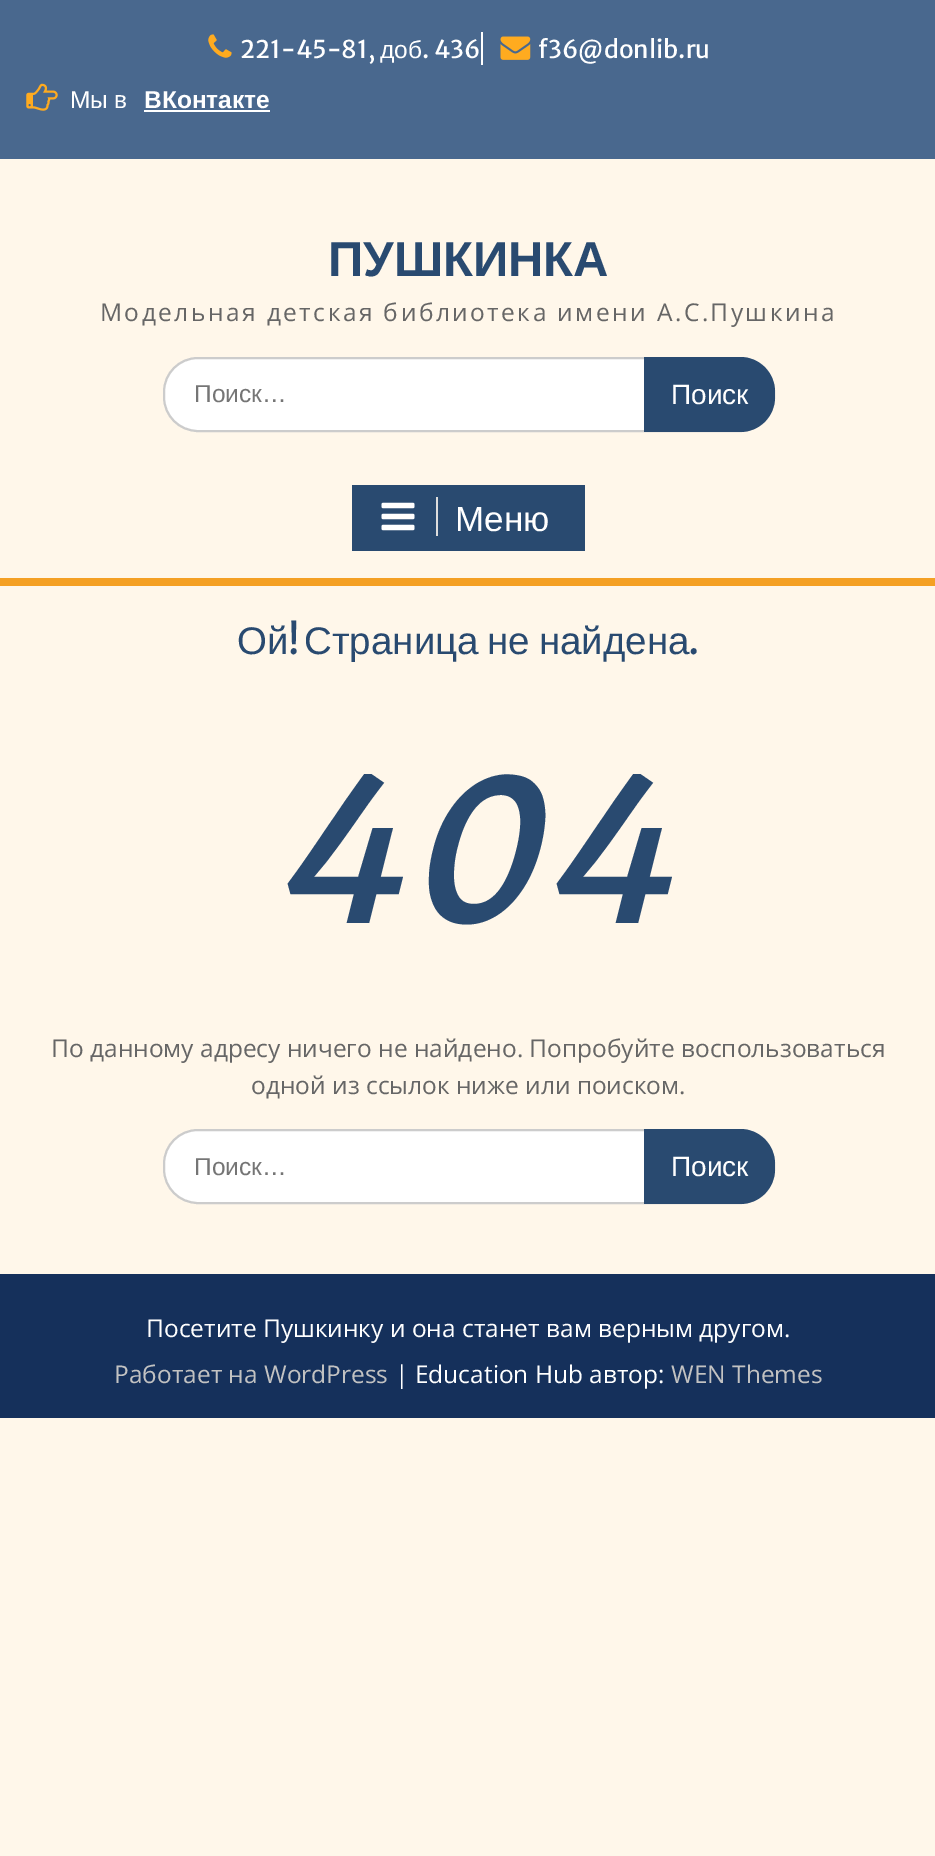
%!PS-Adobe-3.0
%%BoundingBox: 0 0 935 1856
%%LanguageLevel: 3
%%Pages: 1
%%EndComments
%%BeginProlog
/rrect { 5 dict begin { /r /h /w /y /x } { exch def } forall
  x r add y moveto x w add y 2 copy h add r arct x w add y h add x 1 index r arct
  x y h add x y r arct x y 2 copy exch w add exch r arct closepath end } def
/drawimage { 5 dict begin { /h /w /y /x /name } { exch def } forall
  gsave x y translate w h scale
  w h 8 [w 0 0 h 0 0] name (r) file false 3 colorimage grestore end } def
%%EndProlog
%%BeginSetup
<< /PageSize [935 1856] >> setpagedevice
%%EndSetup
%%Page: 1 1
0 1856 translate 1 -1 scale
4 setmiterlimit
1 0.969 0.918 setrgbcolor
0 0 935 1856 rectfill
0.286 0.408 0.557 setrgbcolor
0 0 935 159 rectfill
(images/1.raw) 208 34 24 24 drawimage
1 setgray
481 32 2 33 rectfill
(images/2.raw) 500 36 31 24 drawimage
(images/3.raw) 26 83 32 28 drawimage
144 110 126 2 rectfill
164 358 610 73 34 rrect gsave fill grestore
0.8 setgray
2 setlinewidth
stroke
0.161 0.29 0.439 setrgbcolor
newpath 644 357 moveto 740 357 lineto 759.5 357 775 372.5 775 392 curveto 775 397 lineto 775 416.5 759.5 432 740 432 curveto 644 432 lineto closepath fill
0.957 0.627 0.141 setrgbcolor
0 578 935 8 rectfill
0.161 0.29 0.439 setrgbcolor
352 485 233 66 rectfill
0.867 setgray
436 497 2 39 rectfill
(images/4.raw) 381 502 34 29 drawimage
1 setgray
164 1130 610 73 34 rrect gsave fill grestore
0.8 setgray
stroke
0.161 0.29 0.439 setrgbcolor
newpath 644 1129 moveto 740 1129 lineto 759.5 1129 775 1144.5 775 1164 curveto 775 1169 lineto 775 1188.5 759.5 1204 740 1204 curveto 644 1204 lineto closepath fill
0.082 0.188 0.357 setrgbcolor
0 1274 935 144 rectfill
/MerriweatherSans-Regular [24.5 0 0 -24.5 0 0] selectfont
1 setgray
240 58 moveto (221-45-81,) show
/LiberationSans-Regular [24.5 0 0 -24.5 0 0] selectfont
380 58 moveto (доб) show
/MerriweatherSans-Regular [24.5 0 0 -24.5 0 0] selectfont
422 58 moveto (. 436) show
538 58 moveto (f36@donlib.ru) show
/LiberationSans-Regular [24.5 0 0 -24.5 0 0] selectfont
70 108 moveto -1 0 32 (Мы в) widthshow
/LiberationSans-Bold [24.5 0 0 -24.5 0 0] selectfont
144 108 moveto (ВКонтакте) show
/LiberationSans-Bold [49 0 0 -49 0 0] selectfont
0.161 0.29 0.439 setrgbcolor
328 276 moveto (ПУШКИНКА) show
/OpenSans-Regular [24.5 0 0 -24.5 0 0] selectfont
0.4 setgray
100 321 moveto 2.45 0 (Модельная детская библиотека имени А.С.Пушкина) ashow
/LiberationSans-Regular [24.5 0 0 -24.5 0 0] selectfont
0.459 setgray
194 402 moveto (Поиск…) show
/LiberationSans-Regular [28 0 0 -28 0 0] selectfont
1 setgray
671 404 moveto (Поиск) show
/LiberationSans-Regular [35 0 0 -35 0 0] selectfont
455 531 moveto (Меню) show
/LiberationSans-Regular [38.5 0 0 -38.5 0 0] selectfont
0.161 0.29 0.439 setrgbcolor
237 654 moveto (Ой) show
/MerriweatherSans-Regular [38.5 0 0 -38.5 0 0] selectfont
288 654 moveto (!) show
/LiberationSans-Regular [38.5 0 0 -38.5 0 0] selectfont
304 654 moveto -2 0 32 (Страница не найдена) widthshow
/MerriweatherSans-Regular [38.5 0 0 -38.5 0 0] selectfont
688 654 moveto (.) show
/MerriweatherSans-Italic [198 0 0 -198 0 0] selectfont
267 923 moveto (404) show
/OpenSans-Regular [24.5 0 0 -24.5 0 0] selectfont
0.4 setgray
51 1057 moveto (По данному адресу ничего не найдено. Попробуйте воспользоваться) show
251 1094 moveto (одной из ссылок ниже или поиском.) show
/LiberationSans-Regular [24.5 0 0 -24.5 0 0] selectfont
0.459 setgray
194 1175 moveto (Поиск…) show
/LiberationSans-Regular [28 0 0 -28 0 0] selectfont
1 setgray
671 1176 moveto (Поиск) show
/OpenSans-Regular [24.5 0 0 -24.5 0 0] selectfont
146 1337 moveto (Посетите Пушкинку и она станет вам верным другом.) show
0.761 setgray
114 1383 moveto (Работает на WordPress) show
1 setgray
395 1383 moveto (| Education Hub автор:) show
0.761 setgray
671 1383 moveto (WEN Themes) show
showpage
%%EOF
